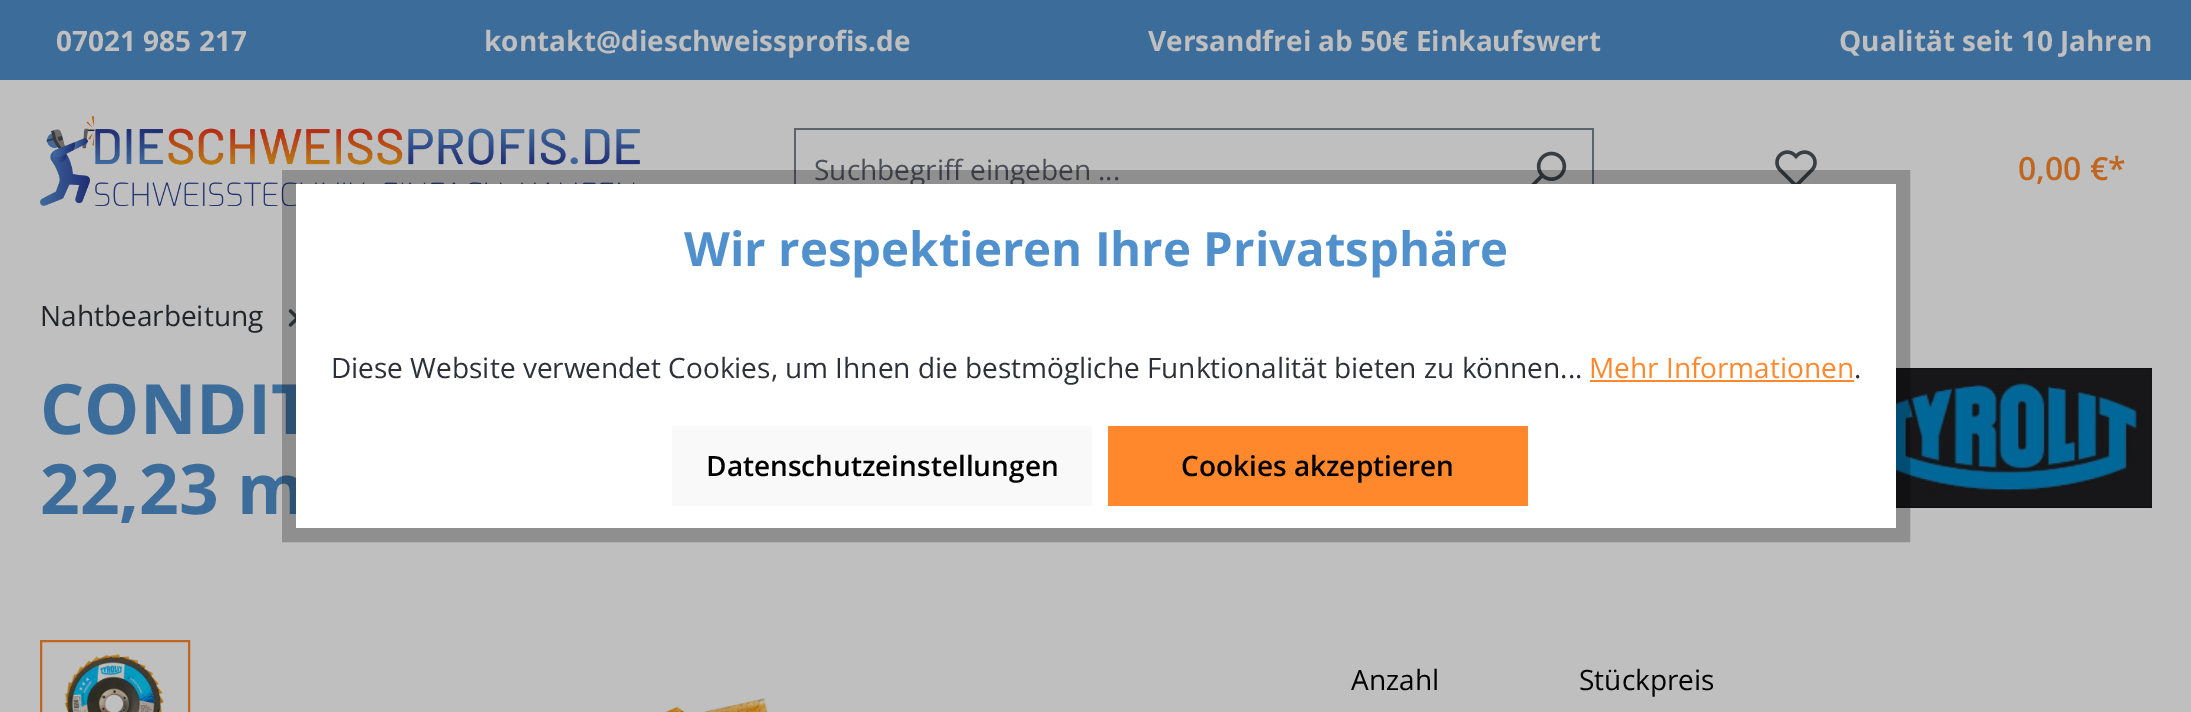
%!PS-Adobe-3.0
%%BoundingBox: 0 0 2191 712
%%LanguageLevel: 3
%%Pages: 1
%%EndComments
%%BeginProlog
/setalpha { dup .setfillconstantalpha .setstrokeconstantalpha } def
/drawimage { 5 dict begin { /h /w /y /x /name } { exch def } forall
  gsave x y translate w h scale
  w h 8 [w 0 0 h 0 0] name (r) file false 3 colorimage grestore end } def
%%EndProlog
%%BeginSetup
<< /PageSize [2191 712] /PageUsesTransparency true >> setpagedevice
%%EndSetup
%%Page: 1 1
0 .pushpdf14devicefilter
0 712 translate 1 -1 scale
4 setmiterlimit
0.749 setgray
0 0 2191 712 rectfill
0.235 0.424 0.604 setrgbcolor
0 0 2191 80 rectfill
(images/1.raw) 40 116 600 90 drawimage
0.357 0.388 0.424 setrgbcolor
794 128 800 2 rectfill
794 128 2 56 rectfill
1592 128 2 56 rectfill
(images/2.raw) 1531 151 36 33 drawimage
(images/3.raw) 1775 150 42 34 drawimage
(images/4.raw) 288 309 8 18 drawimage
(images/5.raw) 1896 368 256 140 drawimage
0.749 0.4 0.129 setrgbcolor
2 setlinewidth
41 641 148 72 rectstroke
(images/6.raw) 64 654 100 58 drawimage
(images/7.raw) 665 698 103 14 drawimage
/OpenSans-Bold [28 0 0 -28 0 0] selectfont
0.749 setgray
56 51 moveto (07021 985 217) show
484 51 moveto (kontakt@dieschweissprofis.de) show
1148 51 moveto (Versandfrei ab 50€ Einkaufswert) show
1839 51 moveto (Qualität seit 10 Jahren) show
/OpenSans-Regular [28 0 0 -28 0 0] selectfont
0.302 0.31 0.349 setrgbcolor
814 180 moveto (Suchbegriff eingeben ...) show
/OpenSans-SemiBold [32 0 0 -32 0 0] selectfont
0.749 0.4 0.129 setrgbcolor
2018 180 moveto (0,00 €*) show
/OpenSans-Regular [28 0 0 -28 0 0] selectfont
0.125 0.145 0.161 setrgbcolor
40 326 moveto (Nahtbearbeitung) show
/OpenSans-Bold [69.5 0 0 -69.5 0 0] selectfont
0.235 0.424 0.604 setrgbcolor
40 434 moveto (CONDIT) show
40 514 moveto (22,23 m) show
0.25 setalpha
0 setgray
14 setlinewidth
289 177 1614 358 rectstroke
1 setalpha
1 setgray
296 184 1600 344 rectfill
1 0.533 0.173 setrgbcolor
1108 426 420 80 rectfill
/OpenSans-SemiBold [28 0 0 -28 0 0] selectfont
0 setgray
1181 476 moveto (Cookies akzeptieren) show
0.976 setgray
672 426 420 80 rectfill
0 setgray
706 476 moveto (Datenschutzeinstellungen) show
/OpenSans-Regular [28 0 0 -28 0 0] selectfont
0.169 0.192 0.212 setrgbcolor
1854 378 moveto (.) show
1 0.533 0.173 setrgbcolor
1589 378 moveto (Mehr Informationen) show
1590 380 264 2 rectfill
0.169 0.192 0.212 setrgbcolor
331 378 moveto (Diese Website verwendet Cookies, um Ihnen die bestmögliche Funktionalität bieten zu können...) show
/OpenSans-Bold [47.4 0 0 -47.4 0 0] selectfont
0.314 0.565 0.804 setrgbcolor
684 266 moveto (Wir respektieren Ihre Privatsphäre) show
/OpenSans-Regular [28 0 0 -28 0 0] selectfont
0 setgray
1351 690 moveto (Anzahl) show
1579 690 moveto (Stückpreis) show
.poppdf14devicefilter showpage
%%EOF
